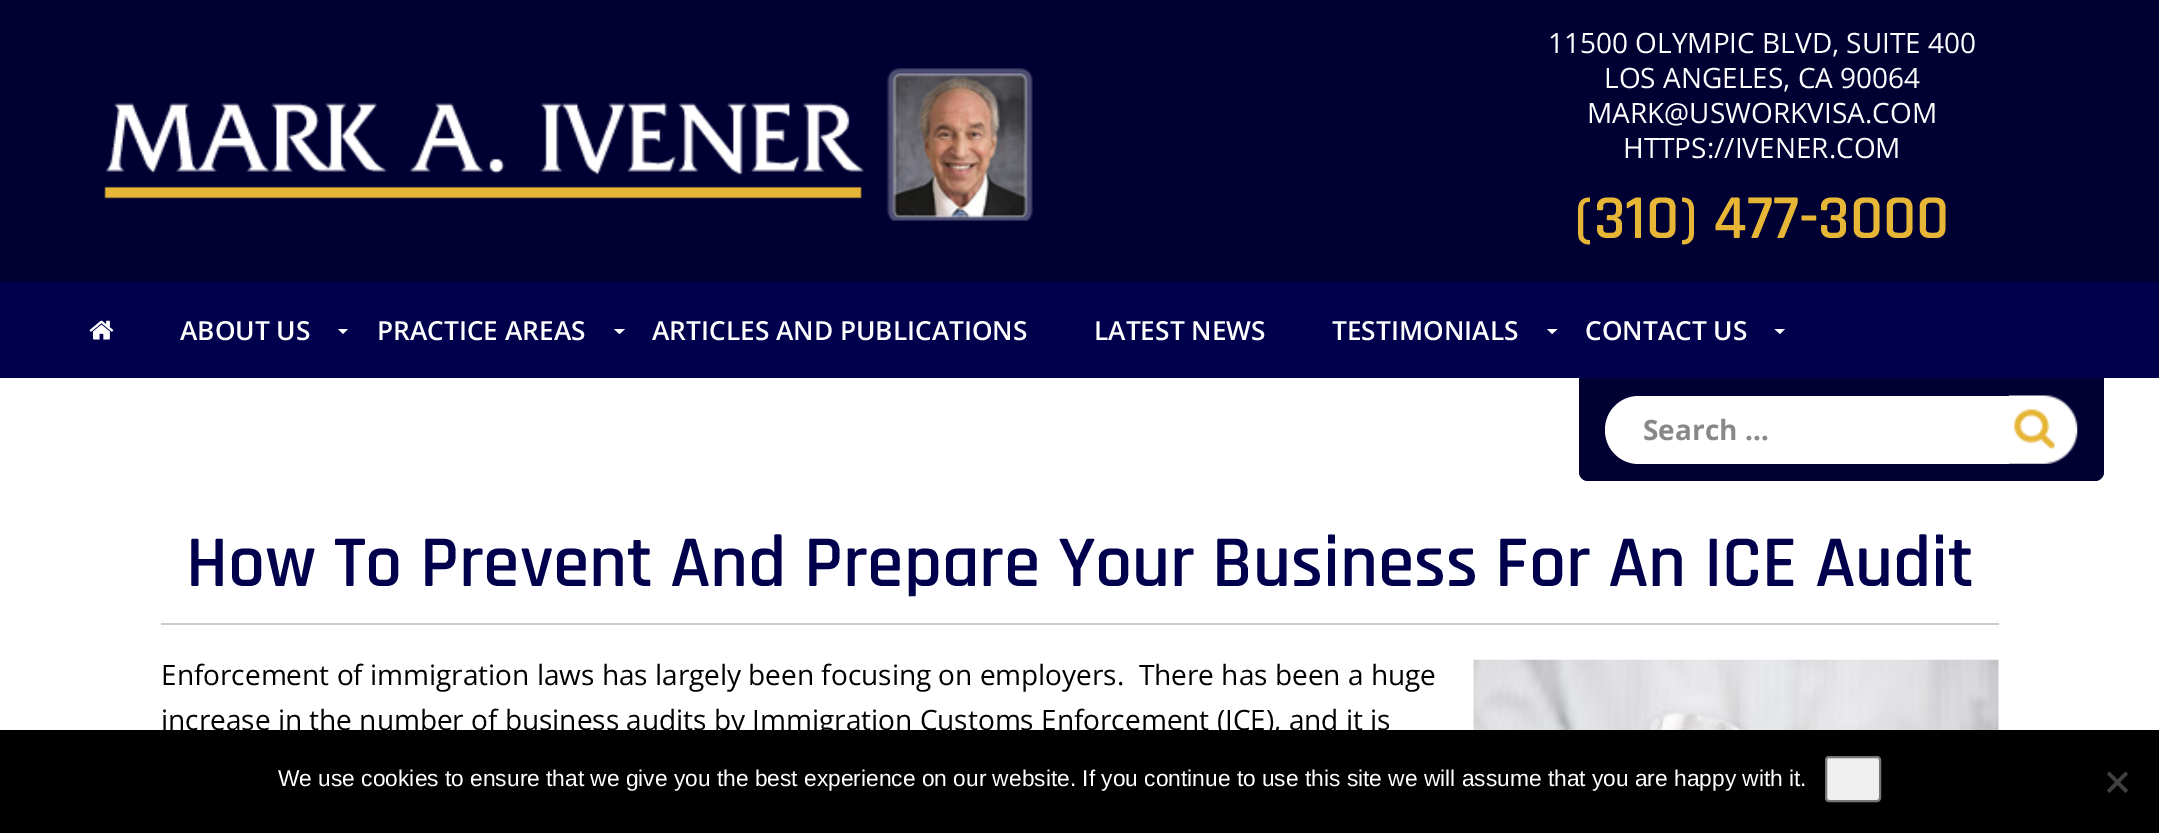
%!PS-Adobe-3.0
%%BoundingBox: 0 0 2159 833
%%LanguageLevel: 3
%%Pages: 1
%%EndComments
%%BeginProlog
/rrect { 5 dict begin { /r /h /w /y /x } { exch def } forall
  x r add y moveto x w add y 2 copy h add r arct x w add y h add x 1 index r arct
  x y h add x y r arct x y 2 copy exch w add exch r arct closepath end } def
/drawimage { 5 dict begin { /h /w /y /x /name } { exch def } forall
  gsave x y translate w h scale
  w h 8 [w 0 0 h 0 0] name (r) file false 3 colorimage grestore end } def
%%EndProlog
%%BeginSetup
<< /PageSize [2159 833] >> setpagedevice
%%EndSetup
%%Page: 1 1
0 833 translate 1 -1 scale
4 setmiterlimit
1 setgray
0 0 2159 833 rectfill
0 0 0.2 setrgbcolor
0 0 2159 282 rectfill
(images/1.raw) 104 68 929 153 drawimage
0 0 0.302 setrgbcolor
0 282 2159 96 rectfill
(images/2.raw) 89 320 25 20 drawimage
1 setgray
newpath 338 329 moveto 348 329 lineto 343 334 lineto closepath fill
newpath 614 329 moveto 625 329 lineto 619.5 334 lineto closepath fill
newpath 1547 329 moveto 1557.5 329 lineto 1552 334 lineto closepath fill
newpath 1774.5 329 moveto 1785 329 lineto 1780 334 lineto closepath fill
0 0 0.2 setrgbcolor
newpath 1579 378 moveto 2104 378 lineto 2104 472 lineto 2104 477 2100 481 2095 481 curveto 1588 481 lineto 1583 481 1579 477 1579 472 curveto closepath fill
1 setgray
newpath 1639 396 moveto 2009 396 lineto 2009 464 lineto 1639 464 lineto 1620 464 1605 449 1605 430 curveto 1605 411 1620 396 1639 396 curveto closepath fill
(images/3.raw) 2009 395 69 69 drawimage
0.8 setgray
161 623 1838 2 rectfill
(images/4.raw) 1473 659 526 71 drawimage
0 setgray
0 730 2159 103 rectfill
0.937 setgray
1826 757 54 44 3 rrect gsave fill grestore
0.463 setgray
2 setlinewidth
stroke
0.251 setgray
newpath 2125.5 771.5 moveto 2128 774 lineto 2109.5 793 lineto 2107 790.5 lineto closepath fill
newpath 2107 774 moveto 2109.5 771.5 lineto 2128 790.5 lineto 2125.5 793 lineto closepath fill
/OpenSans-Regular [28 0 0 -28 0 0] selectfont
1 setgray
1548 53 moveto (11500 OLYMPIC BLVD, SUITE 400) show
1604 88 moveto (LOS ANGELES, CA 90064) show
1587 123 moveto (MARK@USWORKVISA.COM) show
1623 158 moveto (HTTPS://IVENER.COM) show
/Rajdhani-SemiBold [63 0 0 -63 0 0] selectfont
0.906 0.714 0.212 setrgbcolor
1575 238 moveto (\(310\) 477-3000) show
/OpenSans-SemiBold [26.25 0 0 -26.25 0 0] selectfont
1 setgray
180 340 moveto (ABOUT US) show
377 340 moveto (PRACTICE AREAS) show
652 340 moveto (ARTICLES AND PUBLICATIONS) show
1094 340 moveto (LATEST NEWS) show
1332 340 moveto (TESTIMONIALS) show
1585 340 moveto (CONTACT US) show
/OpenSans-Bold [28 0 0 -28 0 0] selectfont
0.533 setgray
1643 440 moveto (Search …) show
/Rajdhani-SemiBold [73.5 0 0 -73.5 0 0] selectfont
0 0 0.302 setrgbcolor
186 586 moveto (How To Prevent And Prepare Your Business For An ICE Audit) show
/OpenSans-Regular [28 0 0 -28 0 0] selectfont
0 setgray
161 685 moveto (Enforcement of immigration laws has largely been focusing on employers.  There has been a huge) show
161 730 moveto (increase in the number of business audits by Immigration Customs Enforcement \(ICE\), and it is) show
/LiberationSans-Regular [22.75 0 0 -22.75 0 0] selectfont
1 setgray
278 786 moveto (We use cookies to ensure that we give you the best experience on our website. If you continue to use this site we will assume that you are happy with it.) show
showpage
%%EOF
